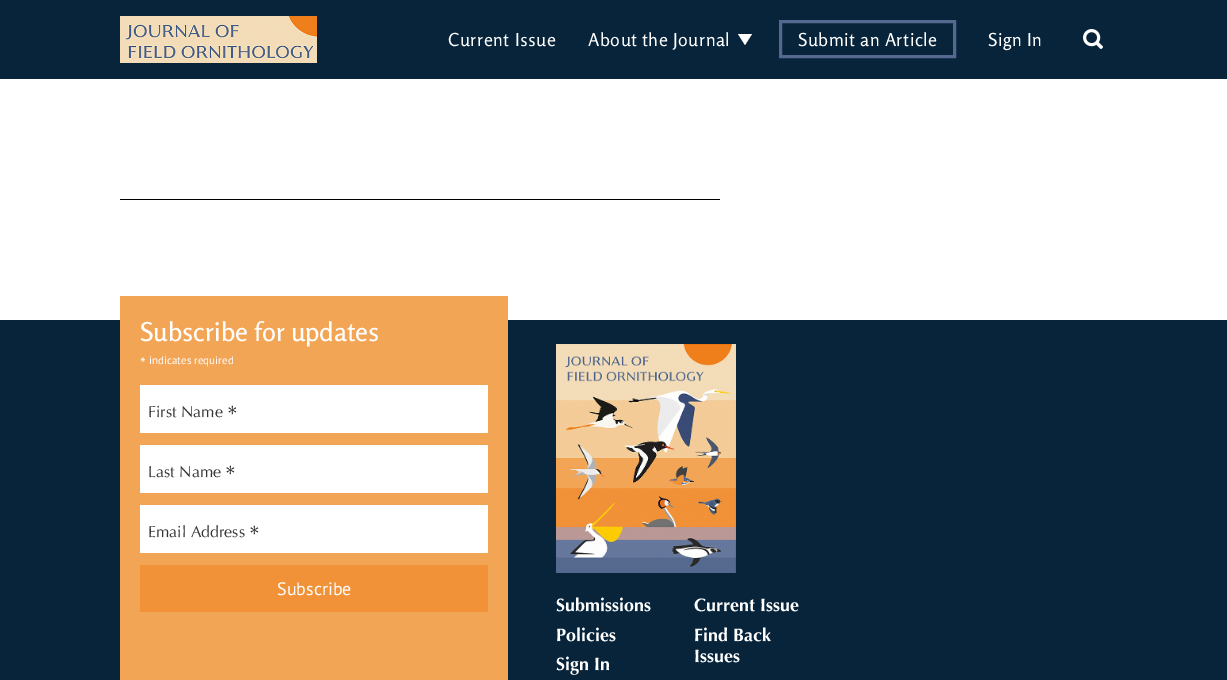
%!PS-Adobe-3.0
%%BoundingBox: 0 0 1227 680
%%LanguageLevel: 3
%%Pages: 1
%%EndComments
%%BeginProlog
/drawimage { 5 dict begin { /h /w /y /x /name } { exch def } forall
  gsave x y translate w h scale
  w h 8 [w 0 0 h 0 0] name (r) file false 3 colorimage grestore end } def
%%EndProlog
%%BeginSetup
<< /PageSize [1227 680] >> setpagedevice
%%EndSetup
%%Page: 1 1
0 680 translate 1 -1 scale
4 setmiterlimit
1 setgray
0 0 1227 680 rectfill
0.027 0.141 0.231 setrgbcolor
0 0 1227 79 rectfill
(images/1.raw) 120 16 197 47 drawimage
1 setgray
newpath 738 34 moveto 752 34 lineto 745 45 lineto closepath fill
0.337 0.408 0.561 setrgbcolor
3 setlinewidth
780.5 21.5 174 35 rectstroke
(images/2.raw) 1083 29 20 20 drawimage
0 setgray
120 199 600 1 rectfill
0.027 0.141 0.231 setrgbcolor
0 320 1227 360 rectfill
0.953 0.647 0.337 setrgbcolor
120 296 388 384 rectfill
1 setgray
140 385 348 48 rectfill
140 445 348 48 rectfill
140 505 348 48 rectfill
0.945 0.573 0.22 setrgbcolor
140 565 348 47 rectfill
(images/3.raw) 556 344 180 229 drawimage
/Rosario-Regular [18 0 0 -18 0 0] selectfont
1 setgray
448 46 moveto 0.5 0 (Current Issue) ashow
588 46 moveto 0.5 0 (About the Journal) ashow
798 46 moveto 0.5 0 (Submit an Article) ashow
988 46 moveto 0.5 0 (Sign In) ashow
/Rosario-Medium [26 0 0 -26 0 0] selectfont
140 341 moveto (Subscribe for updates) show
/PTSans-Regular [16 0 0 -16 0 0] selectfont
140 369 moveto (*) show
/PTSans-Regular [11 0 0 -11 0 0] selectfont
149 364 moveto (indicates required) show
/Optima-Regular [16 0 0 -16 0 0] selectfont
0.2 setgray
148 417 moveto (First Name) show
/Optima-Regular [24 0 0 -24 0 0] selectfont
227 422 moveto (*) show
/Optima-Regular [16 0 0 -16 0 0] selectfont
148 477 moveto (Last Name) show
/Optima-Regular [24 0 0 -24 0 0] selectfont
225 482 moveto (*) show
/Optima-Regular [16 0 0 -16 0 0] selectfont
148 537 moveto (Email Address) show
/Optima-Regular [24 0 0 -24 0 0] selectfont
249 542 moveto (*) show
/PTSans-Regular [18 0 0 -18 0 0] selectfont
1 setgray
277 595 moveto (Subscribe) show
/Optima-Bold [18 0 0 -18 0 0] selectfont
556 611 moveto (Submissions) show
694 611 moveto (Current Issue) show
556 641 moveto (Policies) show
694 641 moveto (Find Back) show
694 662 moveto (Issues) show
556 670 moveto (Sign In) show
showpage
%%EOF
